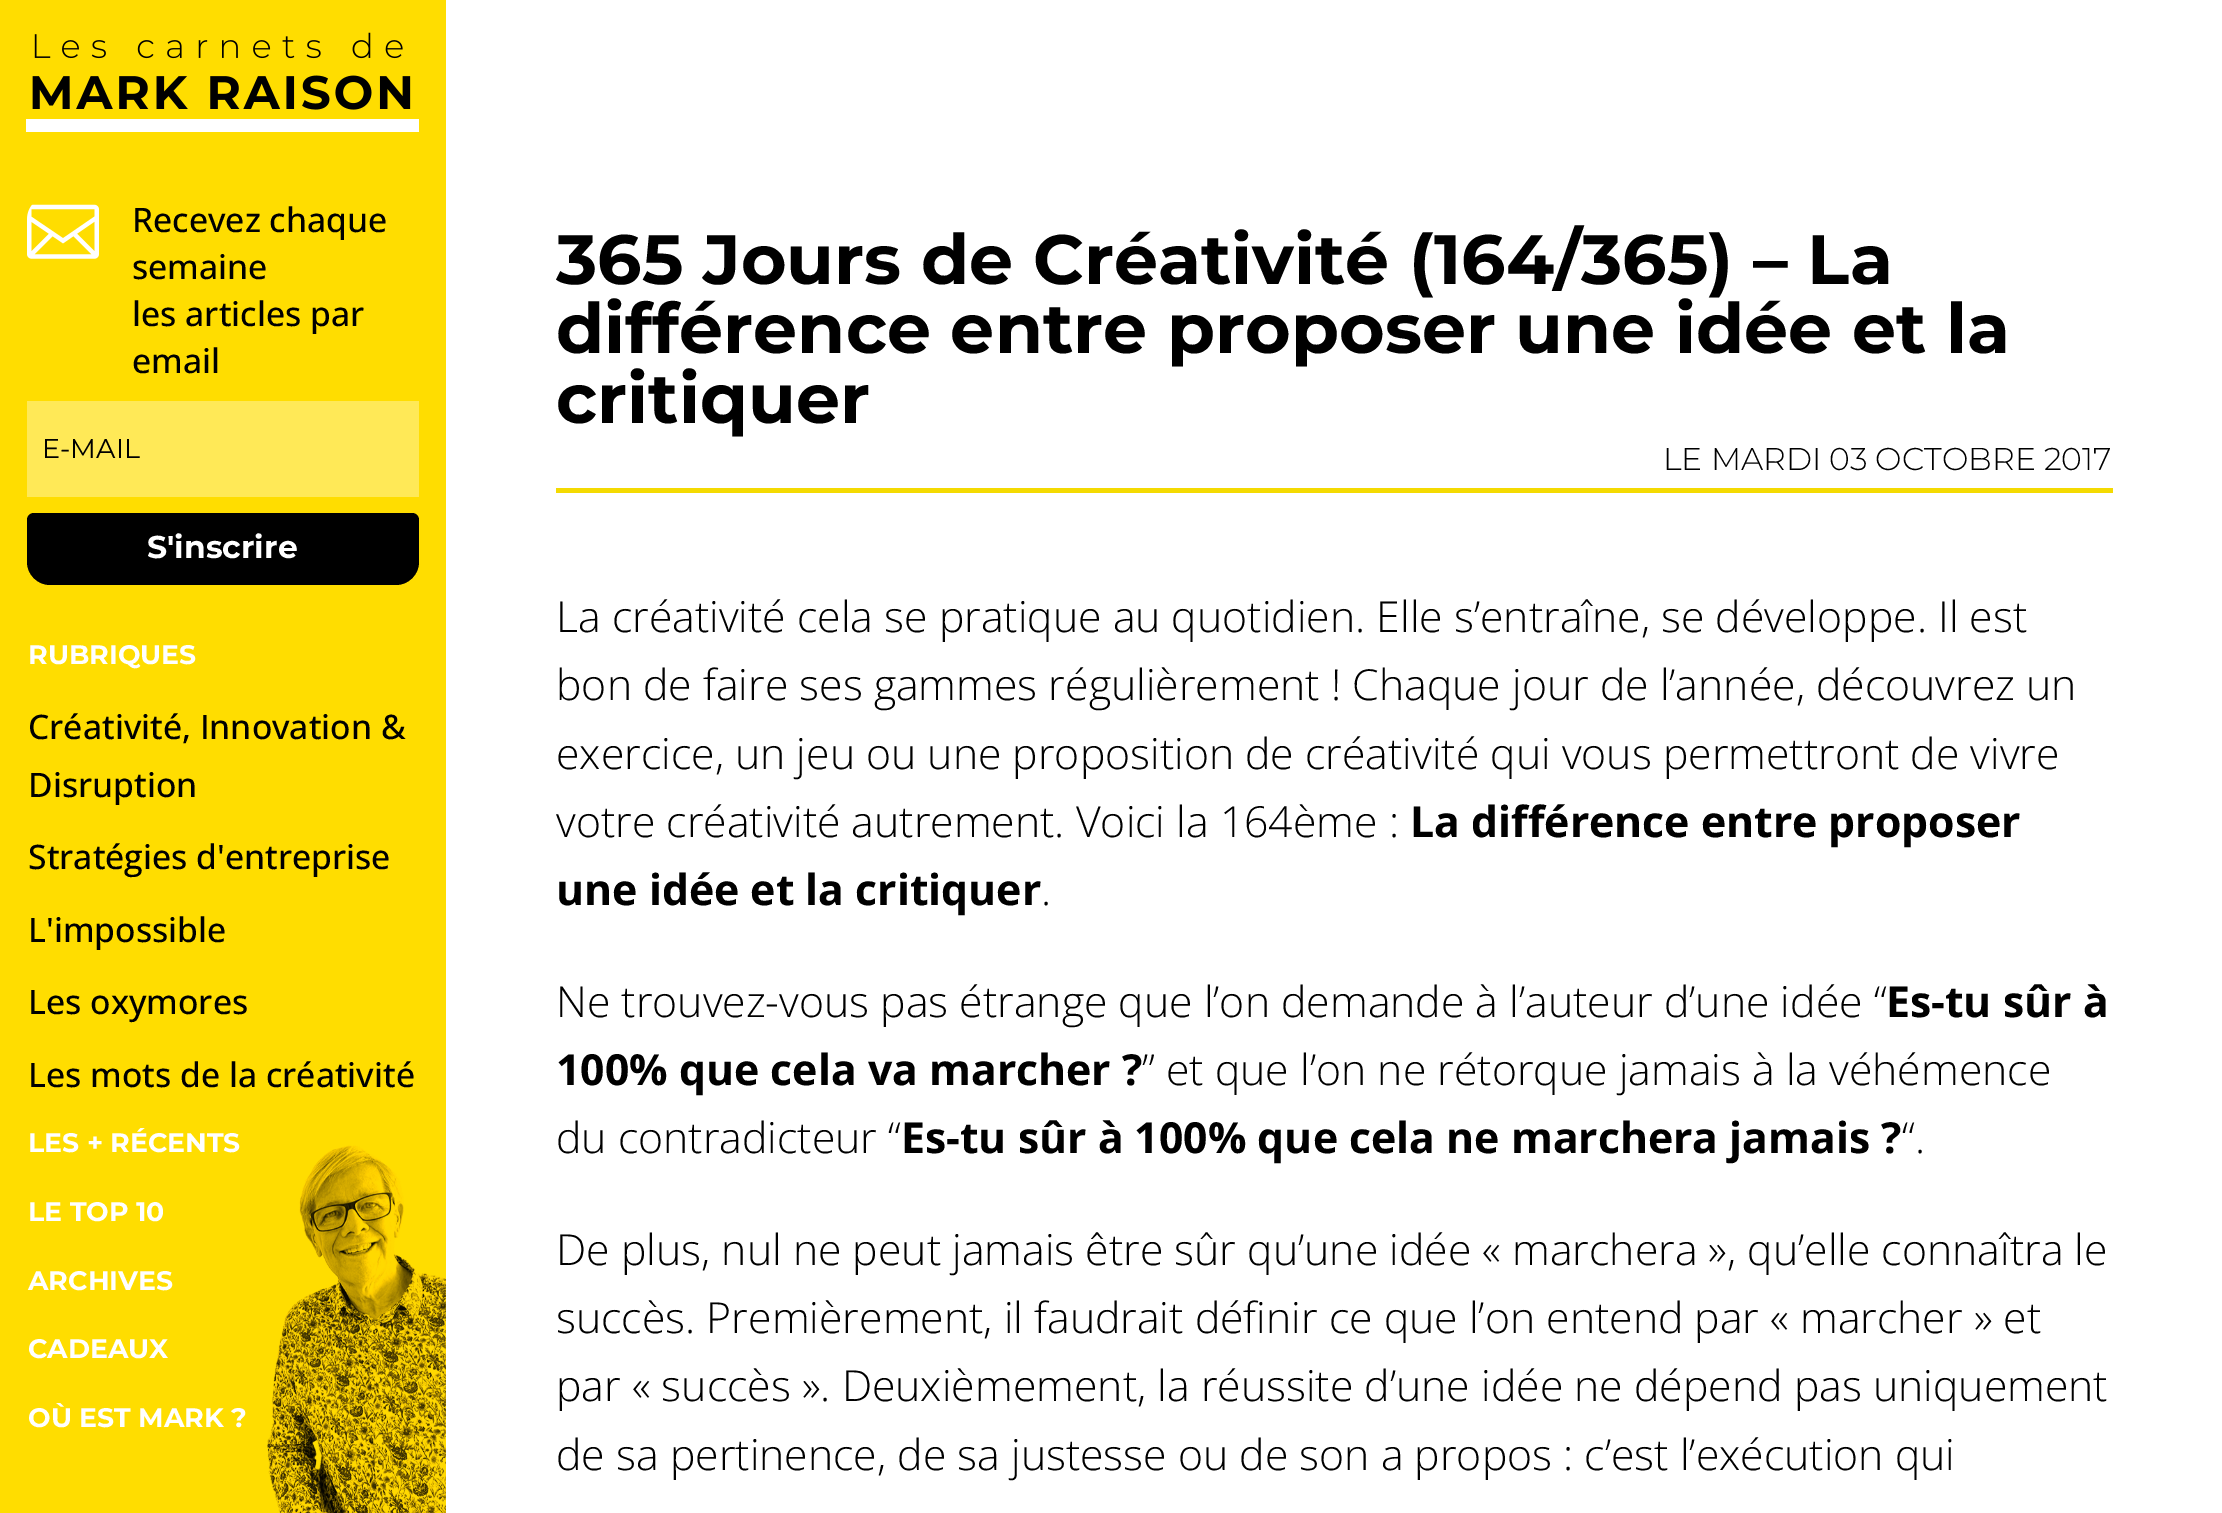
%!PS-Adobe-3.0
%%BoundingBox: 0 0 2222 1513
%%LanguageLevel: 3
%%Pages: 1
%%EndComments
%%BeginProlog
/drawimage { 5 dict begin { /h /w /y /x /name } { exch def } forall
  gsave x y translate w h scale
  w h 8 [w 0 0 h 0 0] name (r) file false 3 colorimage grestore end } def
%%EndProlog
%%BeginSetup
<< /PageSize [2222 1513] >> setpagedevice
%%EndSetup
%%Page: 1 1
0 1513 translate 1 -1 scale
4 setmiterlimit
1 setgray
0 0 2222 1513 rectfill
1 0.867 0 setrgbcolor
0 0 446 1513 rectfill
(images/1.raw) 26 32 393 100 drawimage
(images/2.raw) 27 204 72 55 drawimage
1 0.914 0.341 setrgbcolor
27 401 392 96 rectfill
0 setgray
newpath 34 513 moveto 412 513 lineto 416 513 419 516 419 520 curveto 419 562 lineto 419 574.5 408.5 585 396 585 curveto 50 585 lineto 37.5 585 27 574.5 27 562 curveto 27 520 lineto 27 516 30 513 34 513 curveto closepath fill
(images/3.raw) 267 1145 179 368 drawimage
0.957 0.855 0.004 setrgbcolor
556 488 1557 5 rectfill
/OpenSans-Medium [33.75 0 0 -33.75 0 0] selectfont
0 setgray
132 232 moveto (Recevez chaque) show
132 279 moveto (semaine) show
132 326 moveto (les articles par) show
132 373 moveto (email) show
/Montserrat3-Thin [27 0 0 -27 0 0] selectfont
42 458 moveto (E-MAIL) show
/Montserrat-Thin [31.5 0 0 -31.5 0 0] selectfont
1 setgray
147 558 moveto (S'inscrire) show
/Montserrat-Thin [26.75 0 0 -26.75 0 0] selectfont
28 664 moveto (RUBRIQUES) show
/OpenSans-Medium [33.75 0 0 -33.75 0 0] selectfont
0 setgray
28 739 moveto (Créativité, Innovation &) show
28 797 moveto (Disruption) show
28 869 moveto (Stratégies d'entreprise) show
28 942 moveto (L'impossible) show
28 1014 moveto (Les oxymores) show
28 1087 moveto (Les mots de la créativité) show
/Montserrat-Thin [26.75 0 0 -26.75 0 0] selectfont
1 setgray
28 1152 moveto (LES + RÉCENTS) show
28 1221 moveto (LE TOP 10) show
28 1290 moveto (ARCHIVES) show
28 1358 moveto (CADEAUX) show
28 1427 moveto (OÙ EST MARK ?) show
/Montserrat-Thin [69.75 0 0 -69.75 0 0] selectfont
0 setgray
556 284 moveto (365 Jours de Créativité \(164/365\) – La) show
556 353 moveto (différence entre proposer une idée et la) show
556 423 moveto (critiquer) show
/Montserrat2-Thin [31.5 0 0 -31.5 0 0] selectfont
1663 470 moveto (LE MARDI 03 OCTOBRE 2017) show
/OpenSans-Light [42.75 0 0 -42.75 0 0] selectfont
556 632 moveto (La créativité cela se pratique au quotidien. Elle s’entraîne, se développe. Il est) show
556 700 moveto (bon de faire ses gammes régulièrement ! Chaque jour de l’année, découvrez un) show
556 769 moveto (exercice, un jeu ou une proposition de créativité qui vous permettront de vivre) show
556 837 moveto (votre créativité autrement. Voici la 164ème :) show
/OpenSans-Bold [42.75 0 0 -42.75 0 0] selectfont
1410 837 moveto (La différence entre proposer) show
556 905 moveto (une idée et la critiquer) show
/OpenSans-Light [42.75 0 0 -42.75 0 0] selectfont
1041 905 moveto (.) show
556 1017 moveto (Ne trouvez-vous pas étrange que l’on demande à l’auteur d’une idée “) show
/OpenSans-Bold [42.75 0 0 -42.75 0 0] selectfont
1886 1017 moveto (Es-tu sûr à) show
556 1085 moveto (100% que cela va marcher ?) show
/OpenSans-Light [42.75 0 0 -42.75 0 0] selectfont
1142 1085 moveto (” et que l’on ne rétorque jamais à la véhémence) show
556 1153 moveto (du contradicteur “) show
/OpenSans-Bold [42.75 0 0 -42.75 0 0] selectfont
901 1153 moveto (Es-tu sûr à 100% que cela ne marchera jamais ?) show
/OpenSans-Light [42.75 0 0 -42.75 0 0] selectfont
1902 1153 moveto (“.) show
556 1265 moveto (De plus, nul ne peut jamais être sûr qu’une idée « marchera », qu’elle connaîtra le) show
556 1333 moveto (succès. Premièrement, il faudrait définir ce que l’on entend par « marcher » et) show
556 1401 moveto (par « succès ». Deuxièmement, la réussite d’une idée ne dépend pas uniquement) show
556 1470 moveto (de sa pertinence, de sa justesse ou de son a propos : c’est l’exécution qui) show
showpage
%%EOF
